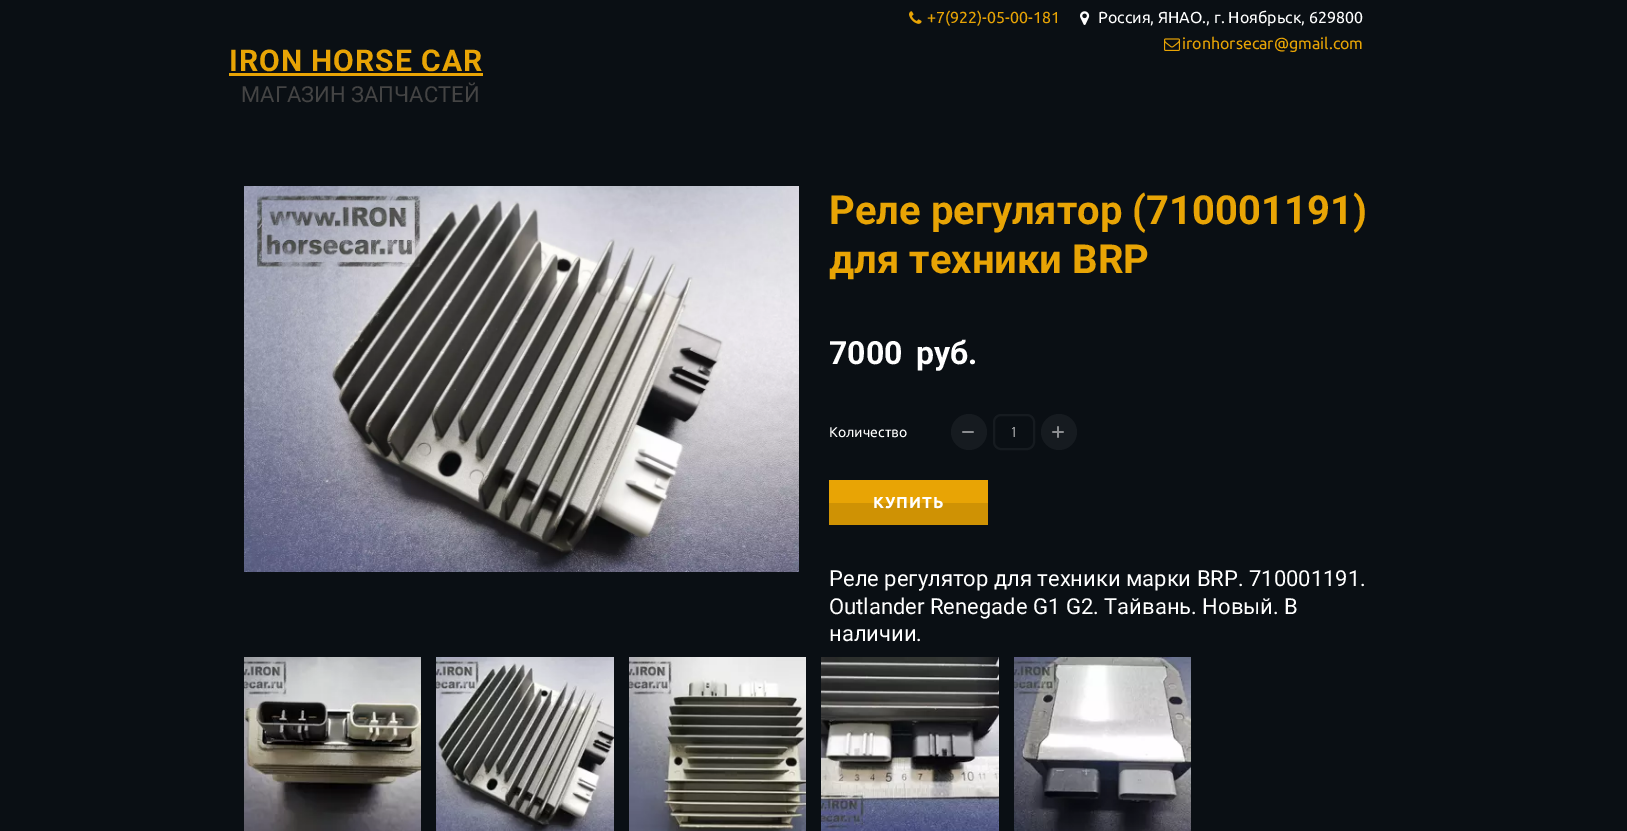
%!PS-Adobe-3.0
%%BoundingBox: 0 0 1627 831
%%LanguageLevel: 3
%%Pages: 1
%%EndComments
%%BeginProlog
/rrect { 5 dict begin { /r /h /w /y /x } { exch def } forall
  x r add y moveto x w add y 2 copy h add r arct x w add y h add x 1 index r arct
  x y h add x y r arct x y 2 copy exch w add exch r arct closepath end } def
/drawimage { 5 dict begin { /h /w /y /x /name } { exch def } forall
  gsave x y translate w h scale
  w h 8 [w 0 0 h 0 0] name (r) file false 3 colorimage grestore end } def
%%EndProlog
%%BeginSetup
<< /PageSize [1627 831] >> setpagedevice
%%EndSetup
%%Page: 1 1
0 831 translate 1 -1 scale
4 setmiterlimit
0.039 0.059 0.078 setrgbcolor
0 0 1627 831 rectfill
(images/1.raw) 909 11 13 13 drawimage
(images/2.raw) 1080 11 10 14 drawimage
(images/3.raw) 1164 38 16 13 drawimage
0.91 0.643 0.02 setrgbcolor
229 73 254 3 rectfill
(images/4.raw) 244 186 555 386 drawimage
0.086 0.106 0.125 setrgbcolor
newpath 969 432 18 0 360 arc closepath fill
(images/5.raw) 962 431 12 2 drawimage
2 setlinewidth
994 415 40 34 7 rrect stroke
newpath 1059 432 18 0 360 arc closepath fill
(images/6.raw) 1052 426 12 12 drawimage
0.91 0.643 0.02 setrgbcolor
829 480 159 23 rectfill
0.812 0.573 0.016 setrgbcolor
829 503 159 22 rectfill
(images/7.raw) 244 657 177 174 drawimage
(images/8.raw) 436 657 178 174 drawimage
(images/9.raw) 629 657 177 174 drawimage
(images/10.raw) 821 657 178 174 drawimage
(images/11.raw) 1014 657 177 174 drawimage
/Ubuntu-Regular [16 0 0 -16 0 0] selectfont
0.91 0.643 0.02 setrgbcolor
927 23 moveto (+7\(922\)-05-00-181) show
1 setgray
1098 23 moveto (Россия, ЯНАО., г. Ноябрьск, 629800) show
0.91 0.643 0.02 setrgbcolor
1182 49 moveto (ironhorsecar@gmail.com) show
/Roboto-Bold [30 0 0 -30 0 0] selectfont
229 71 moveto 1 0 (IRON HORSE CAR) ashow
/Roboto-Regular [22 0 0 -22 0 0] selectfont
0.267 setgray
241 102 moveto (МАГАЗИН ЗАПЧАСТЕЙ) show
/Roboto-Bold [40 0 0 -40 0 0] selectfont
0.91 0.643 0.02 setrgbcolor
829 224 moveto (Реле регулятор \(710001191\)) show
829 273 moveto (для техники BRP) show
/Roboto-Bold [32 0 0 -32 0 0] selectfont
1 setgray
829 364 moveto (7000) show
916 364 moveto (руб.) show
/Ubuntu-Regular [14 0 0 -14 0 0] selectfont
829 437 moveto (Количество) show
/OpenSansCondensed-Light [14 0 0 -14 0 0] selectfont
1011 437 moveto (1) show
/Ubuntu-Bold [16 0 0 -16 0 0] selectfont
873 508 moveto 1 0 (КУПИТЬ) ashow
/Roboto-Regular [22 0 0 -22 0 0] selectfont
829 586 moveto (Реле регулятор для техники марки BRP. 710001191.) show
829 614 moveto (Outlander Renegade G1 G2. Тайвань. Новый. В) show
829 641 moveto (наличии.) show
showpage
%%EOF
